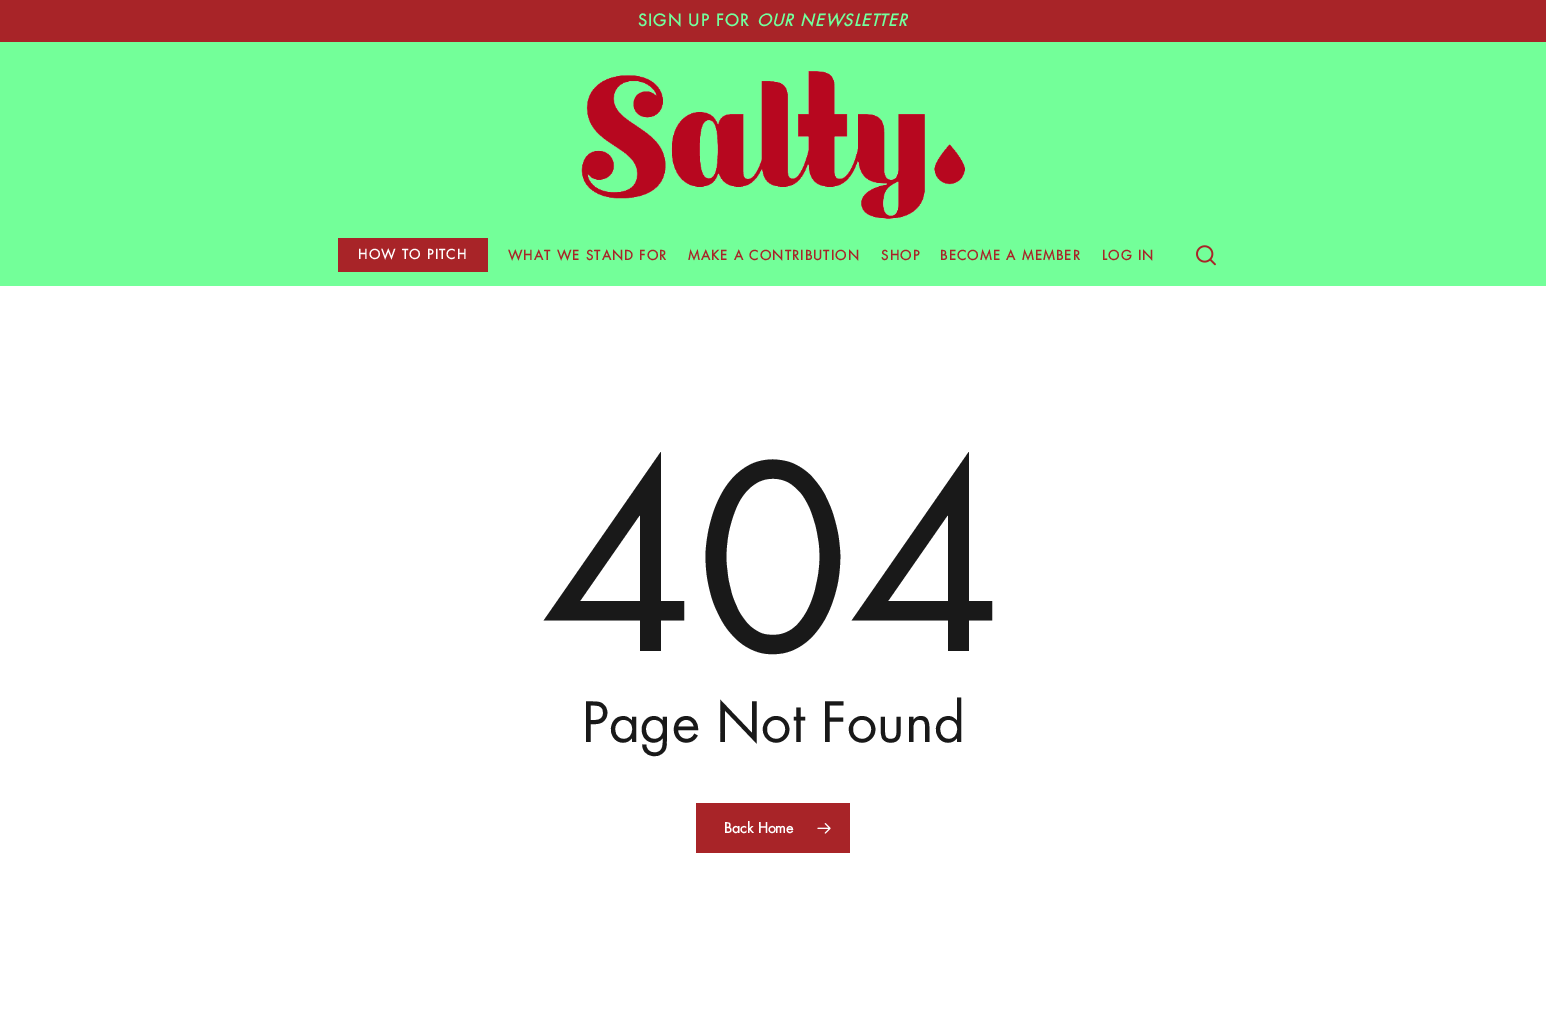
%!PS-Adobe-3.0
%%BoundingBox: 0 0 1546 1032
%%LanguageLevel: 3
%%Pages: 1
%%EndComments
%%BeginProlog
/drawimage { 5 dict begin { /h /w /y /x /name } { exch def } forall
  gsave x y translate w h scale
  w h 8 [w 0 0 h 0 0] name (r) file false 3 colorimage grestore end } def
%%EndProlog
%%BeginSetup
<< /PageSize [1546 1032] >> setpagedevice
%%EndSetup
%%Page: 1 1
0 1032 translate 1 -1 scale
4 setmiterlimit
1 setgray
0 0 1546 1032 rectfill
0.451 1 0.6 setrgbcolor
0 42 1546 244 rectfill
0.659 0.141 0.157 setrgbcolor
0 0 1546 42 rectfill
(images/1.raw) 581 71 384 148 drawimage
338 238 150 34 rectfill
(images/2.raw) 1196 245 20 21 drawimage
696 803 154 50 rectfill
(images/3.raw) 817 823 14 11 drawimage
/Futura-Bold [16 0 0 -16 0 0] selectfont
0.451 1 0.616 setrgbcolor
638 26 moveto 1.25 0 (SIGN UP FOR) ashow
/Futura-BoldItalic [16 0 0 -16 0 0] selectfont
757 26 moveto 1.25 0 (OUR NEWSLETTER) ashow
/Futura-Bold [13 0 0 -13 0 0] selectfont
1 setgray
358 259 moveto 1.25 0 (HOW TO PITCH) ashow
0.659 0.141 0.157 setrgbcolor
508 260 moveto 1.25 0 (WHAT WE STAND FOR) ashow
688 260 moveto 1.25 0 (MAKE A CONTRIBUTION) ashow
881 260 moveto 1.25 0 (SHOP) ashow
940 260 moveto 1.25 0 (BECOME A MEMBER) ashow
1102 260 moveto 1.25 0 (LOG IN) ashow
/Futura-Regular [250 0 0 -250 0 0] selectfont
0.098 setgray
542 651 moveto (404) show
/Futura-Regular [54 0 0 -54 0 0] selectfont
582 742 moveto (Page Not Found) show
/Futura-Bold [14 0 0 -14 0 0] selectfont
1 setgray
724 833 moveto (Back Home) show
showpage
%%EOF
